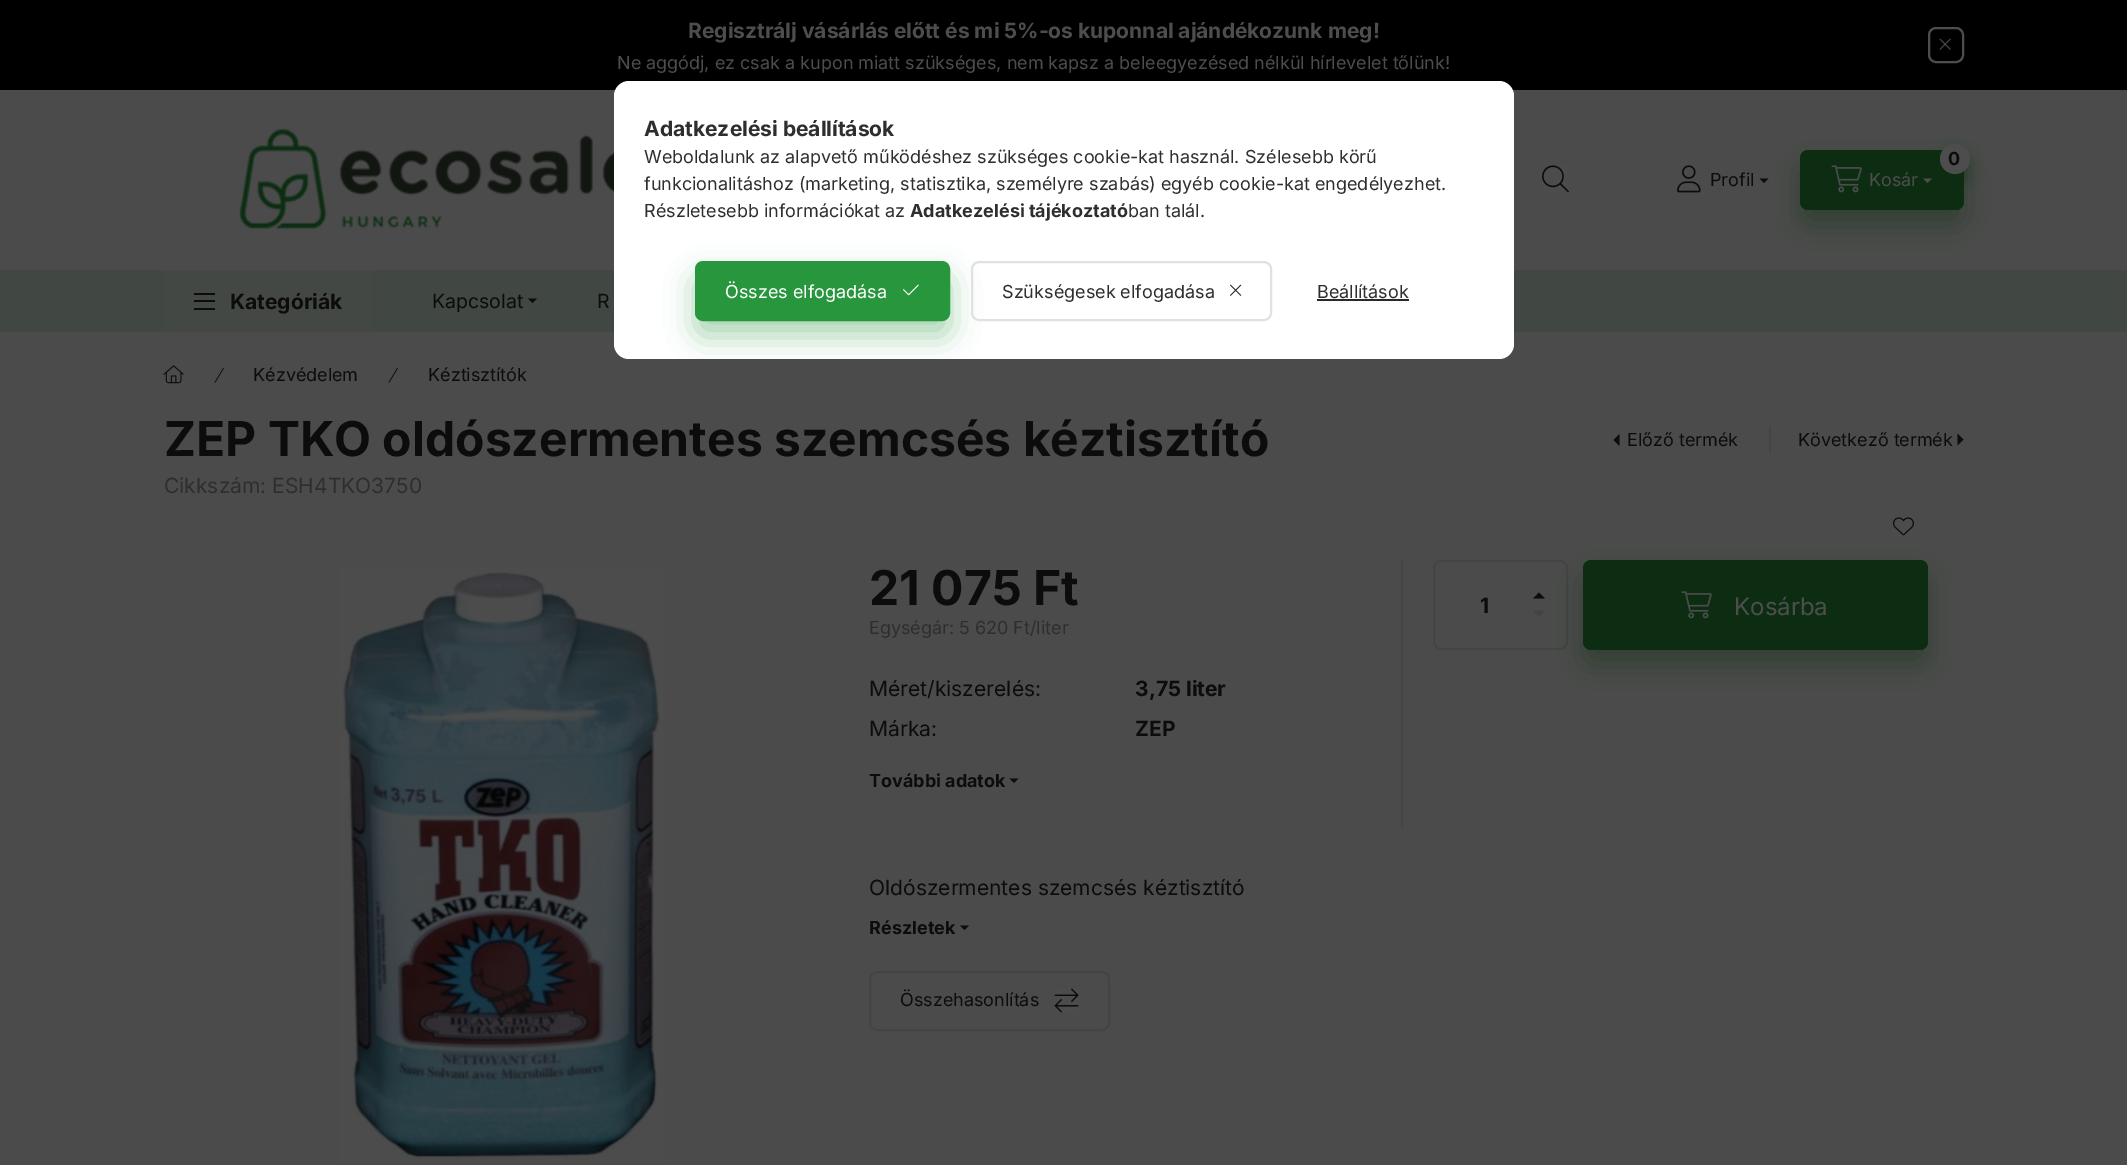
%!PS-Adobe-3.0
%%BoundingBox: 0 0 2127 1165
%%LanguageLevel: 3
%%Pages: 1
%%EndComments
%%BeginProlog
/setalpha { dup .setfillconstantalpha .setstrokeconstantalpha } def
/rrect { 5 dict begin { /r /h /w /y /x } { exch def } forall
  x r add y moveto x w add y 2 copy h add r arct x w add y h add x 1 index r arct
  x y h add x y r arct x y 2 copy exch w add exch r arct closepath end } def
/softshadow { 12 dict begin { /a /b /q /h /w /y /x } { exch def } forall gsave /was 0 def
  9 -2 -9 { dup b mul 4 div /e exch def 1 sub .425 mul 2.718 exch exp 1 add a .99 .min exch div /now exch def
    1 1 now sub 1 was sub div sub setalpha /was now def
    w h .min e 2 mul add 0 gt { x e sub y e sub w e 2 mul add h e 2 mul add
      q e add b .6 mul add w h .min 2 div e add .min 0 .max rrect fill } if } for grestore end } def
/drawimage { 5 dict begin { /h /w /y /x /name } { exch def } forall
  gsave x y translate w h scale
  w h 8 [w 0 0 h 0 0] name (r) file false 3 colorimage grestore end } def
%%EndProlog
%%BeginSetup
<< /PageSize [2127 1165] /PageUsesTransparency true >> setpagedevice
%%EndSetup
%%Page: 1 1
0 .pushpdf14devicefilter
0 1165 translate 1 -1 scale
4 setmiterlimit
0.294 setgray
0 0 2127 1165 rectfill
0 setgray
0 0 2127 90 rectfill
0.302 setgray
2 setlinewidth
1929 28 34 34 7 rrect stroke
(images/1.raw) 1939 38 12 12 drawimage
(images/2.raw) 239 128 375 102 drawimage
(images/3.raw) 1542 165 27 28 drawimage
(images/4.raw) 1677 165 24 28 drawimage
0.255 0.278 0.259 setrgbcolor
0 270 2127 62 rectfill
0.047 0.176 0.071 setrgbcolor
1800 165 164 60 8 15 0.4 softshadow
0.047 setgray
newpath 1759.5 178.5 moveto 1768.5 178.5 lineto 1764 183 lineto closepath fill
0.047 0.176 0.071 setrgbcolor
1800 150 164 60 8 rrect fill
1940 152 30 30 15 7.5 0.4 softshadow
0.302 setgray
newpath 1955 159 15 0 360 arc closepath fill
(images/5.raw) 1831 165 31 28 drawimage
newpath 1923 178.5 moveto 1932 178.5 lineto 1927.5 183 lineto closepath fill
0.267 0.282 0.271 setrgbcolor
164 270 208 62 rectfill
0.047 setgray
194 293 21 2 rectfill
194 300 21 2 rectfill
194 308 21 2 rectfill
newpath 528 298.5 moveto 537 298.5 lineto 532.5 303 lineto closepath fill
(images/6.raw) 163 365 21 19 drawimage
(images/7.raw) 214 367 10 16 drawimage
(images/7.raw) 388 367 10 16 drawimage
newpath 1619.5 446 moveto 1619.5 434 lineto 1613.5 440 lineto closepath fill
0.267 setgray
1769 426 2 27 rectfill
0.047 setgray
newpath 1957.5 445.5 moveto 1957.5 433.5 lineto 1963.5 439.5 lineto closepath fill
0.267 setgray
1434 561 133 88 7 rrect stroke
0.047 setgray
newpath 1545 598.5 moveto 1533 598.5 lineto 1539 592.5 lineto closepath fill
0.259 setgray
newpath 1533 610.5 moveto 1545 610.5 lineto 1539 616.5 lineto closepath fill
0.047 0.176 0.071 setrgbcolor
1583 575 345 90 8 15 0.4 softshadow
(images/8.raw) 1893 517 21 19 drawimage
(images/9.raw) 339 568 327 595 drawimage
0.047 setgray
newpath 1009.5 778.5 moveto 1018.5 778.5 lineto 1014 783 lineto closepath fill
0.267 setgray
1401 560 2 267 rectfill
0.047 0.176 0.071 setrgbcolor
1583 560 345 90 8 rrect fill
(images/5.raw) 1681 591 31 28 drawimage
0.047 setgray
newpath 960 925.5 moveto 969 925.5 lineto 964.5 930 lineto closepath fill
0.267 setgray
870 972 239 58 7 rrect stroke
(images/10.raw) 1054 988 25 25 drawimage
1 setgray
614 81 900 278 15 rrect fill
gsave
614 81 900 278 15 rrect clip newpath
0.153 0.588 0.235 setrgbcolor
695 276 255 60 8 15 0.4 softshadow
grestore
0.153 0.588 0.235 setrgbcolor
696 262 253 58 7 rrect gsave fill grestore
stroke
(images/11.raw) 903 284 16 12 drawimage
0.882 setgray
972 262 299 58 7 rrect stroke
(images/12.raw) 1230 284 12 12 drawimage
0.161 setgray
1317 299 92 2 rectfill
/Inter-Bold [21 0 0 -21 0 0] selectfont
0.302 setgray
688 38 moveto (Regisztrálj vásárlás előtt és mi 5%-os kuponnal ajándékozunk meg!) show
/Inter-Regular [18 0 0 -18 0 0] selectfont
617 69 moveto (Ne aggódj, ez csak a kupon miatt szükséges, nem kapsz a beleegyezésed nélkül hírlevelet tőlünk!) show
0.047 setgray
1710 186 moveto (Profil) show
/Inter-Bold [18 0 0 -18 0 0] selectfont
1948 165 moveto (0) show
/Inter-Regular [18 0 0 -18 0 0] selectfont
0.302 setgray
1869 186 moveto (Kosár) show
/Inter-Bold [21 0 0 -21 0 0] selectfont
0.047 setgray
230 309 moveto (Kategóriák) show
/Inter-Regular [19.5 0 0 -19.5 0 0] selectfont
432 308 moveto (Kapcsolat) show
597 308 moveto (R) show
/Inter-Regular [18 0 0 -18 0 0] selectfont
253 381 moveto (Kézvédelem) show
428 381 moveto (Kéztisztítók) show
/Inter-Bold [48 0 0 -48 0 0] selectfont
164 456 moveto (ZEP TKO oldószermentes szemcsés kéztisztító) show
/Inter-Regular [18 0 0 -18 0 0] selectfont
1627 446 moveto (Előző termék) show
1798 446 moveto (Következő termék) show
/Inter-Regular [21 0 0 -21 0 0] selectfont
0.18 setgray
164 493 moveto (Cikkszám: ESH4TKO3750) show
/Inter-Bold [48 0 0 -48 0 0] selectfont
0.047 setgray
869 605 moveto (21 075 Ft) show
/Inter-Regular [18 0 0 -18 0 0] selectfont
0.18 setgray
869 634 moveto (Egységár: 5 620 Ft/liter) show
/Inter-Regular [21 0 0 -21 0 0] selectfont
0.047 setgray
869 696 moveto (Méret/kiszerelés:) show
/Inter-Bold [21 0 0 -21 0 0] selectfont
1135 696 moveto (3,75 liter) show
/Inter-Regular [21 0 0 -21 0 0] selectfont
869 736 moveto (Márka:) show
/Inter-Bold [21 0 0 -21 0 0] selectfont
1135 736 moveto (ZEP) show
/Inter-Bold [18 0 0 -18 0 0] selectfont
869 787 moveto (További adatok) show
/Inter-Bold [21 0 0 -21 0 0] selectfont
1480 613 moveto (1) show
/Inter-Regular [24 0 0 -24 0 0] selectfont
0.302 setgray
1734 615 moveto (Kosárba) show
/Inter-Regular [21 0 0 -21 0 0] selectfont
0.047 setgray
869 895 moveto (Oldószermentes szemcsés kéztisztító) show
/Inter-Bold [18 0 0 -18 0 0] selectfont
869 934 moveto (Részletek) show
/Inter-Regular [18 0 0 -18 0 0] selectfont
900 1006 moveto (Összehasonlítás) show
/Inter-Bold [21 0 0 -21 0 0] selectfont
0.18 setgray
644 136 moveto (Adatkezelési beállítások) show
/Inter-Regular [18 0 0 -18 0 0] selectfont
644 163 moveto (Weboldalunk az alapvető működéshez szükséges cookie-kat használ. Szélesebb körű) show
644 190 moveto (funkcionalitáshoz \(marketing, statisztika, személyre szabás\) egyéb cookie-kat engedélyezhet.) show
644 217 moveto (Részletesebb információkat az) show
/Inter-Bold [18 0 0 -18 0 0] selectfont
910 217 moveto (Adatkezelési tájékoztató) show
/Inter-Regular [18 0 0 -18 0 0] selectfont
1128 217 moveto (ban talál.) show
1 setgray
725 298 moveto (Összes elfogadása) show
0.18 setgray
1002 298 moveto (Szükségesek elfogadása) show
1317 298 moveto (Beállítások) show
.poppdf14devicefilter showpage
%%EOF
